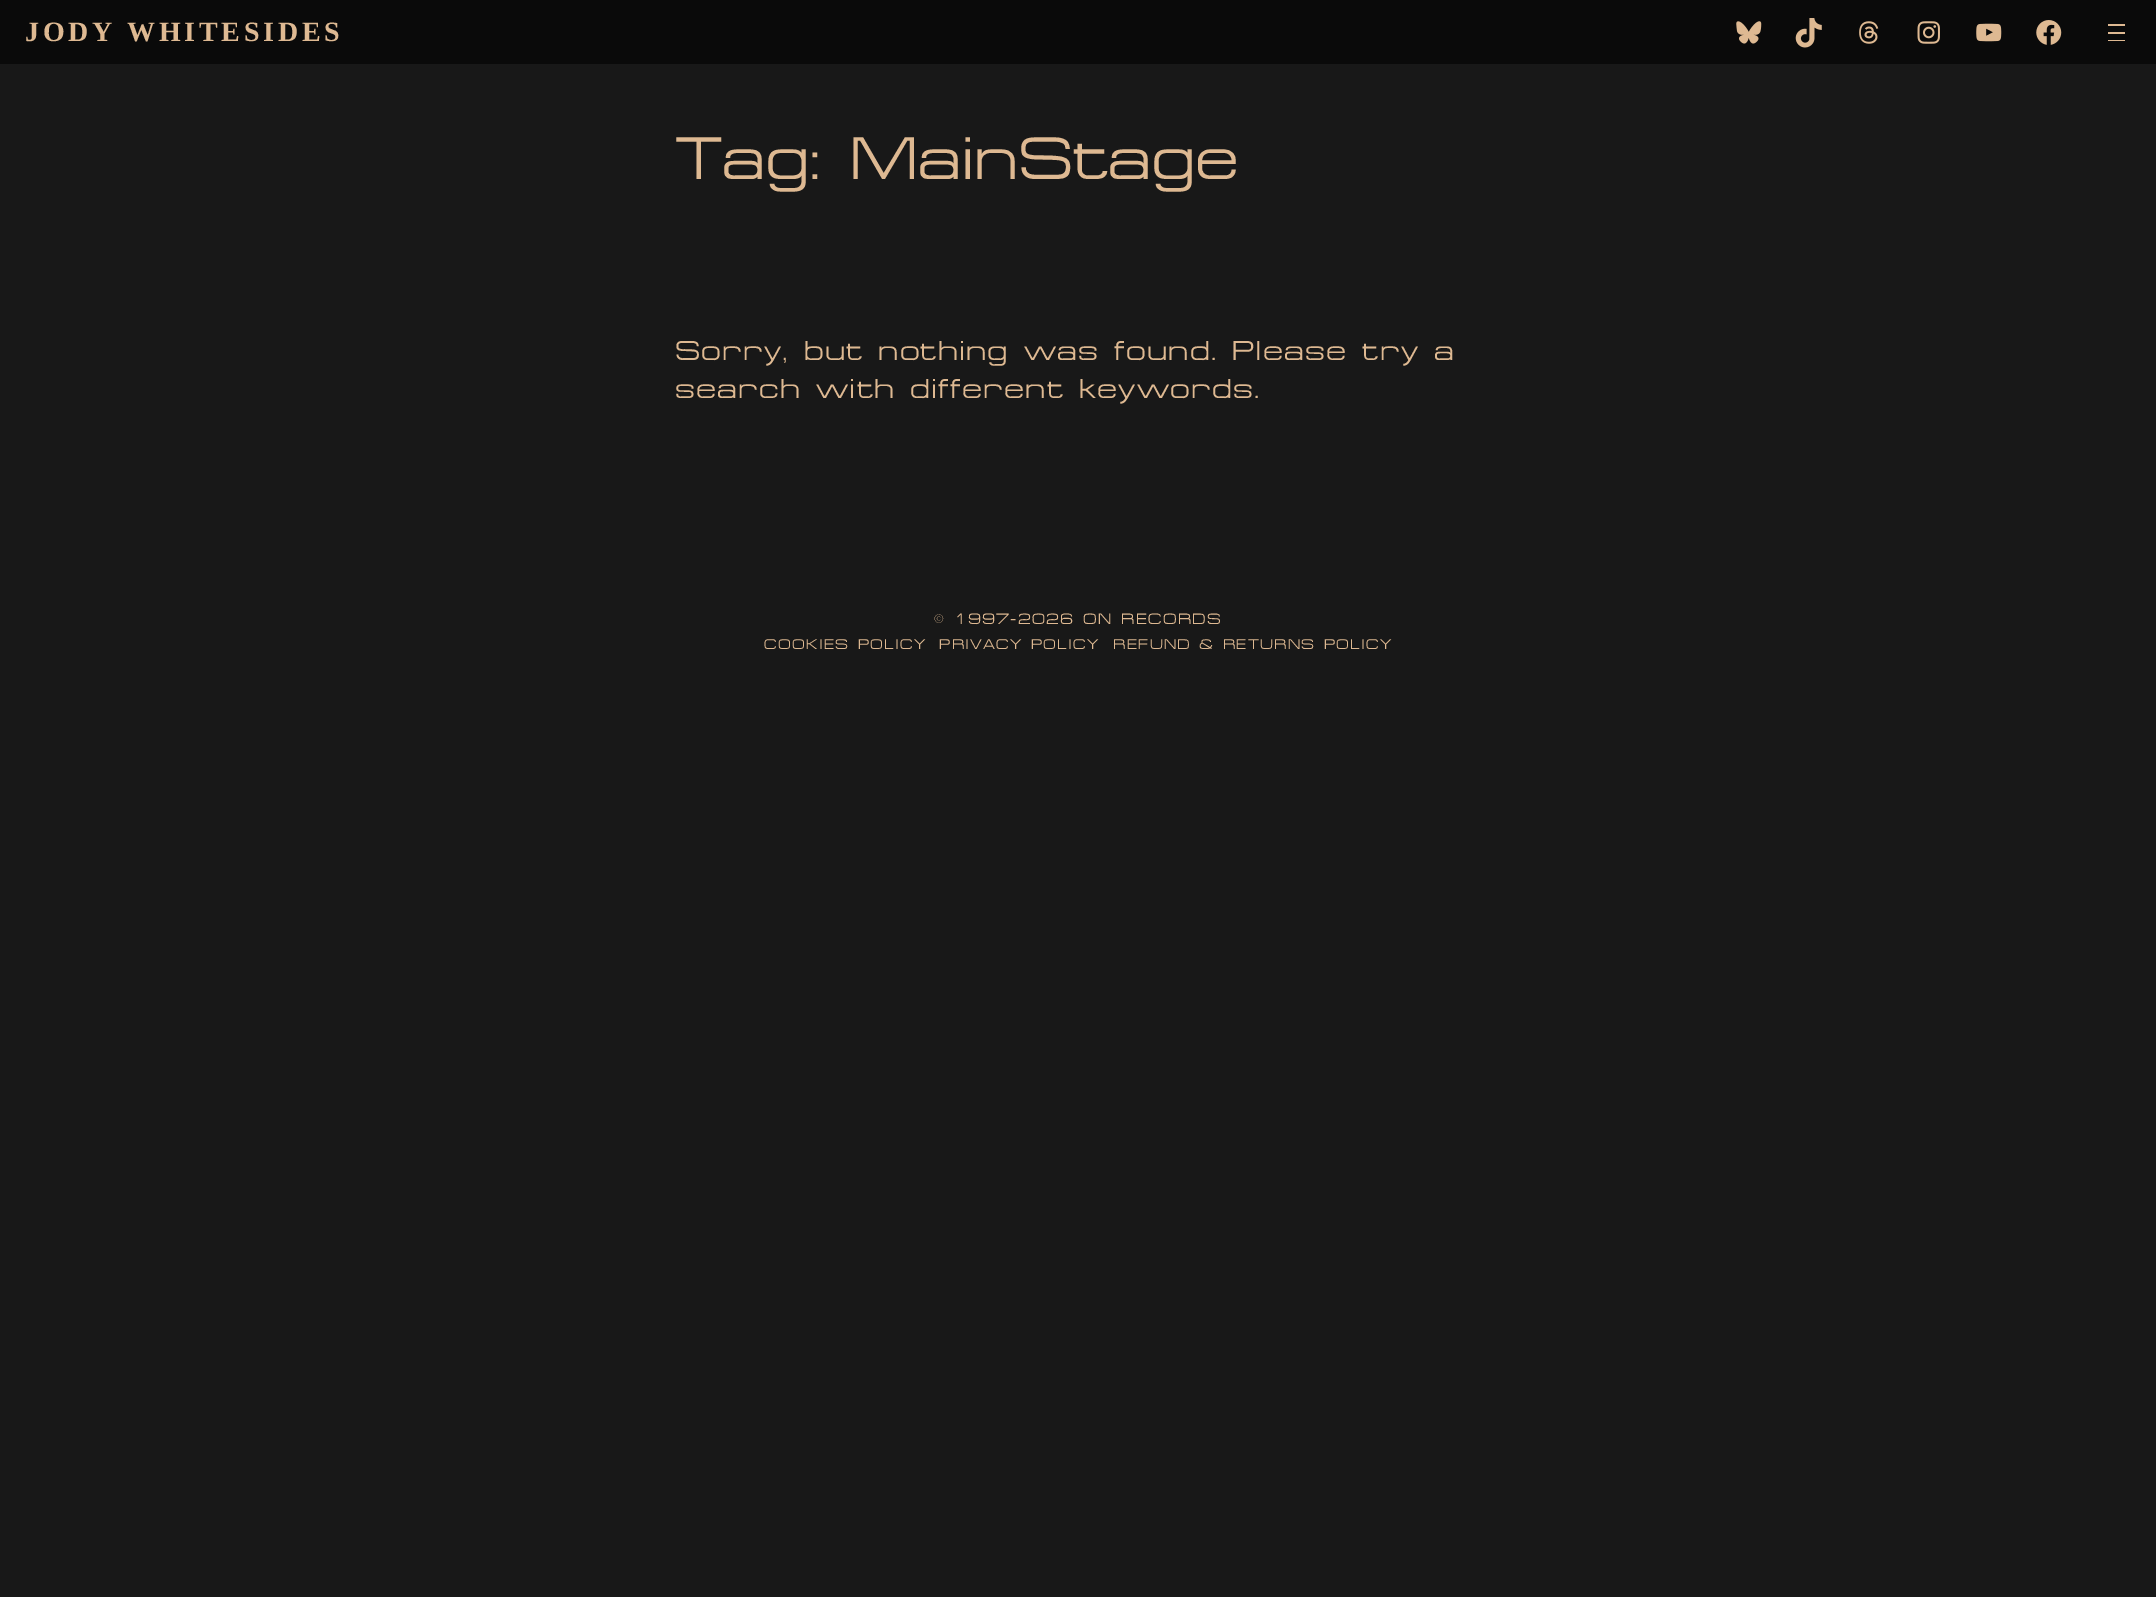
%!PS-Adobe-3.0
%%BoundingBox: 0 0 2156 1597
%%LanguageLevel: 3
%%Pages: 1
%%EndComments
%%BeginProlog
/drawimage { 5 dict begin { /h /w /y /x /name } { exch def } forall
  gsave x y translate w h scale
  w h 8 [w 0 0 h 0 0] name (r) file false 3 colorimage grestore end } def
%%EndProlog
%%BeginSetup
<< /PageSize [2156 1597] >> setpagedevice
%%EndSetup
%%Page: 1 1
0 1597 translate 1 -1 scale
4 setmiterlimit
0.094 setgray
0 0 2156 1597 rectfill
0.039 setgray
0 0 2156 64 rectfill
(images/1.raw) 1736 21 26 23 drawimage
(images/2.raw) 1795 18 27 30 drawimage
(images/3.raw) 1859 21 20 23 drawimage
(images/4.raw) 1917 21 23 23 drawimage
(images/5.raw) 1976 23 26 19 drawimage
(images/6.raw) 2036 20 26 25 drawimage
0.871 0.725 0.573 setrgbcolor
2108 24 17 2 rectfill
2108 32 17 2 rectfill
2108 40 17 1 rectfill
/LiberationSerif-Bold [28 0 0 -28 0 0] selectfont
25 41 moveto 3.75 0 (JODY WHITESIDES) ashow
/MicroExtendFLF-Medium [60 0 0 -60 0 0] selectfont
675 179 moveto (Tag: MainStage) show
/MicroExtendFLF-Medium [27.5 0 0 -27.5 0 0] selectfont
675 360 moveto 1.25 0 (Sorry, but nothing was found. Please try a) ashow
675 398 moveto 1.25 0 (search with different keywords.) ashow
/MicroExtendFLF-Medium [15 0 0 -15 0 0] selectfont
934 624 moveto 1.25 0 (© 1997-2026 ON RECORDS) ashow
/MicroExtendFLF-Medium [14 0 0 -14 0 0] selectfont
764 649 moveto 1.25 0 (COOKIES POLICY) ashow
939 649 moveto 1.25 0 (PRIVACY POLICY) ashow
1113 649 moveto 1.25 0 (REFUND & RETURNS POLICY) ashow
showpage
%%EOF
